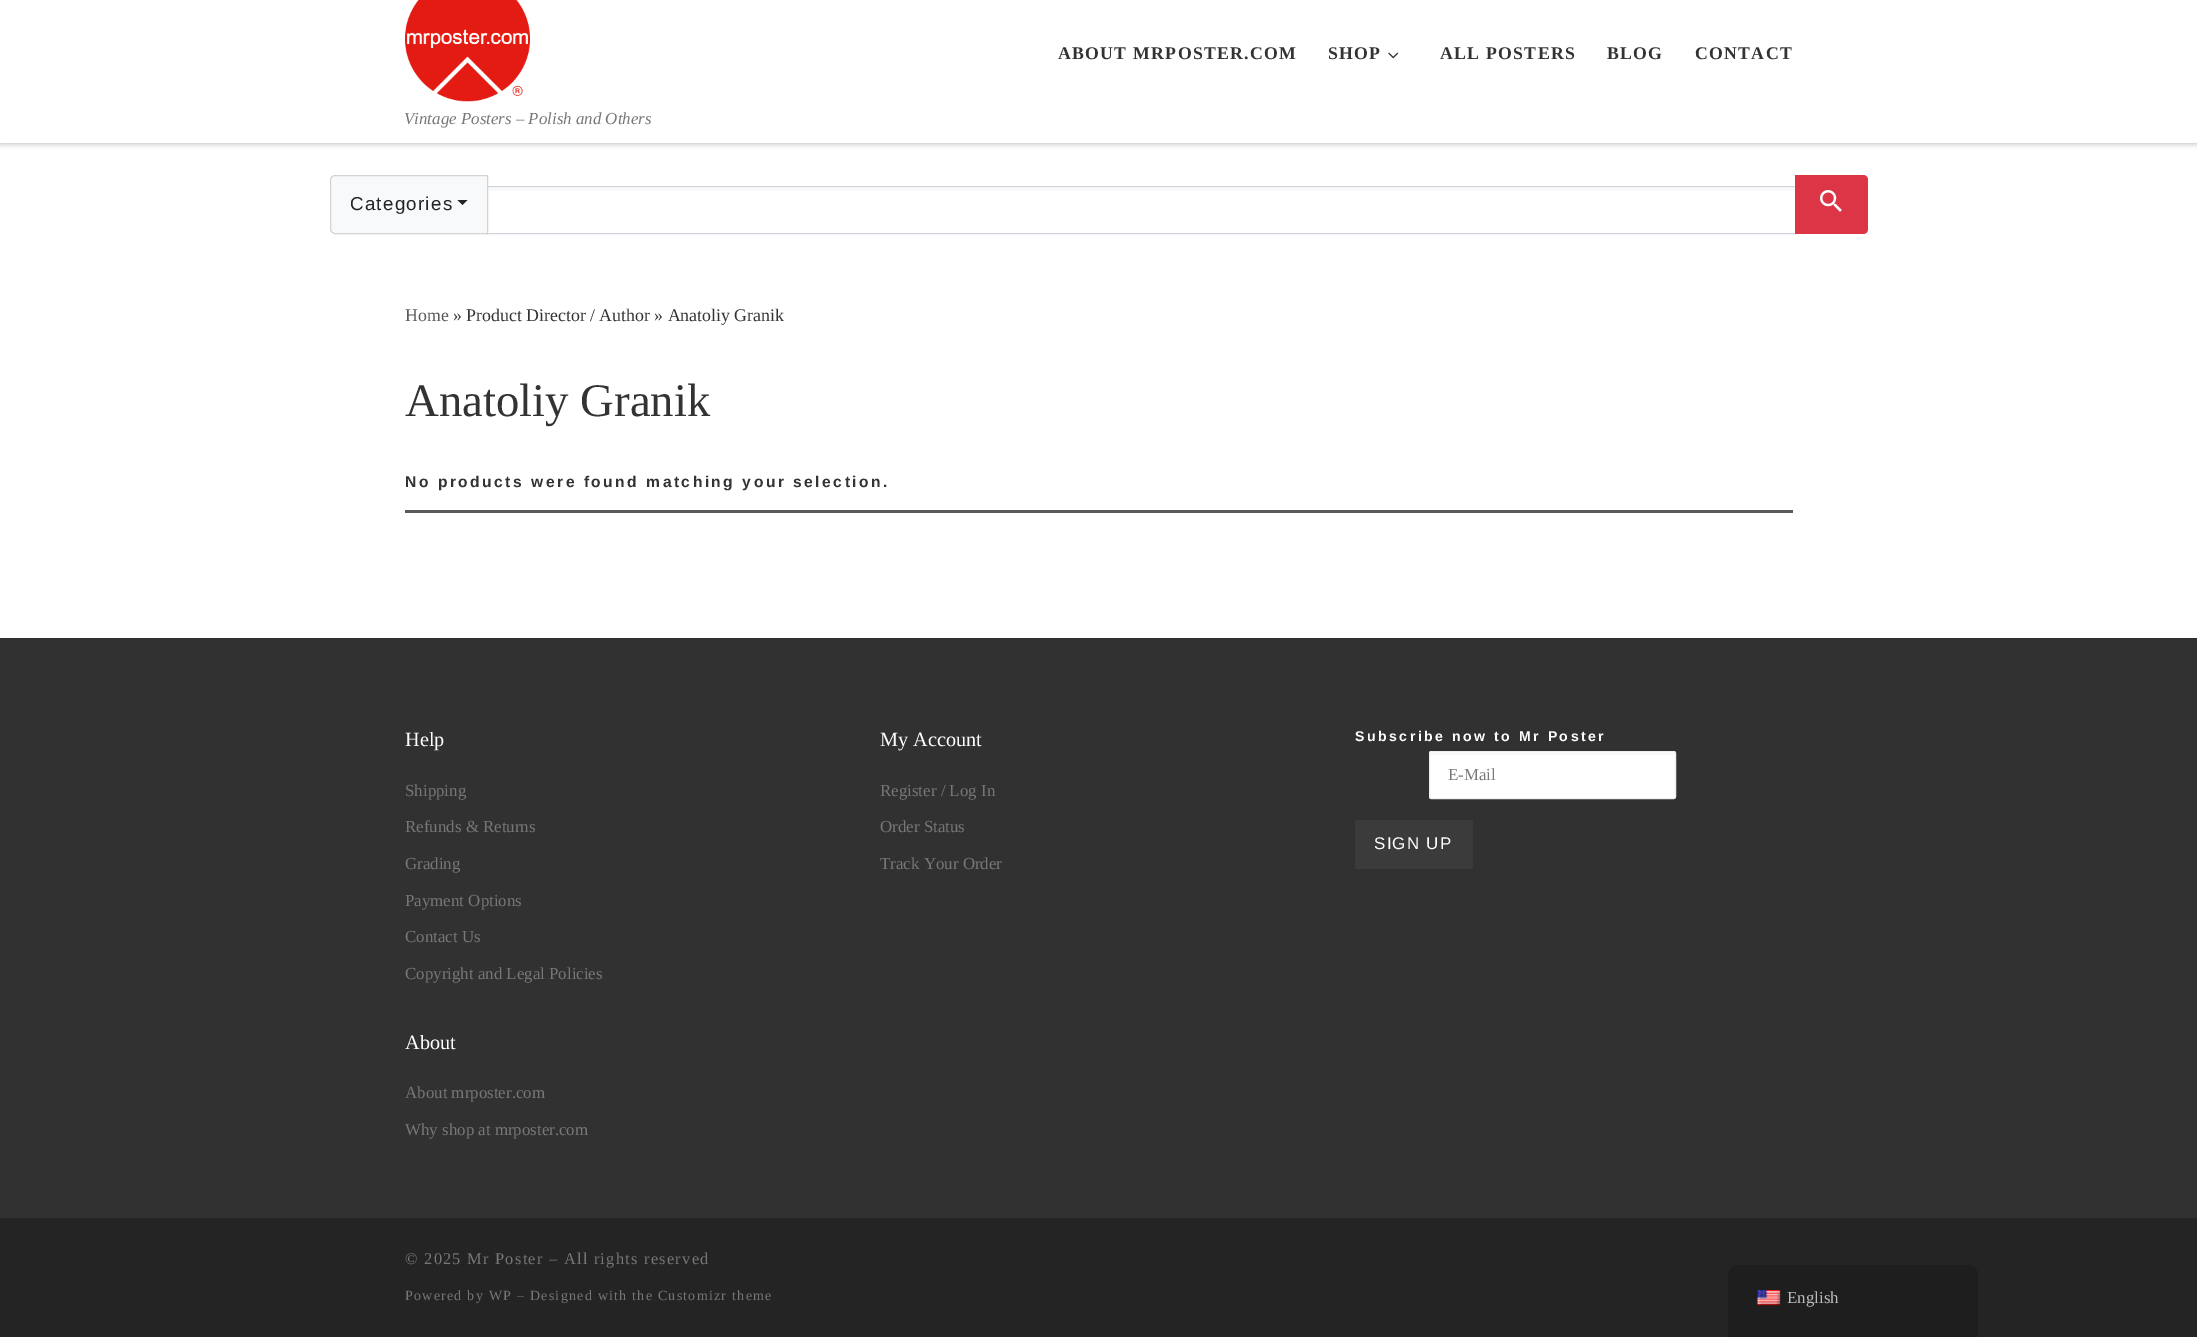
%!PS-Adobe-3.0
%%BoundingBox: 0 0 2197 1337
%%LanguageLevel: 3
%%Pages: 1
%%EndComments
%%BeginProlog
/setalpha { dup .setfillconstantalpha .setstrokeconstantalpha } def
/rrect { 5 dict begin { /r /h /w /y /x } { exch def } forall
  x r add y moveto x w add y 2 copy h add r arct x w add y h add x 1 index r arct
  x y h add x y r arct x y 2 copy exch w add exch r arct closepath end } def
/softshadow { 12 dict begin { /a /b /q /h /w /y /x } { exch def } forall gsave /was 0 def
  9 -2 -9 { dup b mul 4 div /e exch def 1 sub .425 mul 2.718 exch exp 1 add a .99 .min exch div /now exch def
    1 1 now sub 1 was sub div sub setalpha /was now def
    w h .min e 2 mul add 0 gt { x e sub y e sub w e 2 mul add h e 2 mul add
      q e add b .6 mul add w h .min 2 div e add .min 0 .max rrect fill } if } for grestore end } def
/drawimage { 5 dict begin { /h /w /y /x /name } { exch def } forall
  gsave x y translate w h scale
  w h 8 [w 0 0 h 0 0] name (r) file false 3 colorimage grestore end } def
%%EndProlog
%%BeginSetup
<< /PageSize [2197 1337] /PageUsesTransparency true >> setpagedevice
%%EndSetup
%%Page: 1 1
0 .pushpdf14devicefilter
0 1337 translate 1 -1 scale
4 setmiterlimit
1 setgray
0 0 2197 1337 rectfill
0.4 setgray
0 -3 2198 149 0 1 0.08 softshadow
0.925 setgray
0 143 2197 1 rectfill
0.15 setalpha
1 setgray
newpath 0 142 moveto 0 144 lineto 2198 144 lineto 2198 -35 lineto 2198 142 lineto closepath fill
1 setalpha
0 setgray
0 -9 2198 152 0 3 0.2 softshadow
1 setgray
0 0 2197 143 rectfill
(images/1.raw) 1388 52 11 7 drawimage
(images/2.raw) 405 0 125 102 drawimage
0.976 setgray
488 188 1307 3 rectfill
0.808 0.831 0.855 setrgbcolor
486.5 186.5 1309 47 rectstroke
0.973 0.976 0.98 setrgbcolor
newpath 335 175.5 moveto 487.5 175.5 lineto 487.5 233.5 lineto 335 233.5 lineto 332.5 233.5 330.5 231.5 330.5 229 curveto 330.5 180 lineto 330.5 177.5 332.5 175.5 335 175.5 curveto closepath gsave fill grestore
0.827 setgray
stroke
0.129 0.145 0.161 setrgbcolor
newpath 457.5 200 moveto 467.5 200 lineto 462.5 205 lineto closepath fill
0.863 0.208 0.271 setrgbcolor
newpath 1795 175 moveto 1863 175 lineto 1866 175 1868 177 1868 180 curveto 1868 229 lineto 1868 232 1866 234 1863 234 curveto 1795 234 lineto closepath fill
(images/3.raw) 1820 190 22 22 drawimage
0.353 setgray
405 510 1388 3 rectfill
0.192 setgray
0 638 2197 580 rectfill
1 setgray
1429 751 247 48 2.5 rrect fill
0.976 setgray
newpath 1431 755 moveto 1674 755 lineto 1675 756 lineto 1675 753 lineto 1431 753 lineto 1430 753 1430 755 1430 756 curveto closepath fill
0.925 0.933 0.937 setrgbcolor
1429.5 751.5 246 47 2 rrect stroke
0.231 setgray
1355 820 118 49 2.5 rrect fill
0.141 setgray
0 1218 2197 119 rectfill
0.118 setgray
newpath 1738 1265 moveto 1968 1265 lineto 1973.5 1265 1978 1269.5 1978 1275 curveto 1978 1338 lineto 1728 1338 lineto 1728 1275 lineto 1728 1269.5 1732.5 1265 1738 1265 curveto closepath fill
(images/4.raw) 1757 1290 24 16 drawimage
/LiberationSerif-Bold [17.8 0 0 -17.8 0 0] selectfont
0.2 setgray
1058 59 moveto 1.25 0 (ABOUT MRPOSTER.COM) ashow
1328 59 moveto 1.25 0 (SHOP) ashow
1440 59 moveto 1.25 0 (ALL POSTERS) ashow
1607 59 moveto 1.25 0 (BLOG) ashow
1695 59 moveto 1.25 0 (CONTACT) ashow
/LiberationSerif-Italic [16.9 0 0 -16.9 0 0] selectfont
0.467 setgray
404 124 moveto (Vintage Posters – Polish and Others) show
/LiberationSans-Regular [18.75 0 0 -18.75 0 0] selectfont
0.129 0.145 0.161 setrgbcolor
350 210 moveto 1.25 0 (Categories) ashow
/LiberationSerif-Regular [17.8 0 0 -17.8 0 0] selectfont
0.353 setgray
405 321 moveto (Home) show
0.2 setgray
453 321 moveto (» Product Director / Author » Anatoliy Granik) show
/LiberationSerif-Regular [46.75 0 0 -46.75 0 0] selectfont
405 416 moveto (Anatoliy Granik) show
/LiberationSans-Bold [15.6 0 0 -15.6 0 0] selectfont
405 487 moveto 2.5 0 (No products were found matching your selection.) ashow
/LiberationSerif-Regular [20.25 0 0 -20.25 0 0] selectfont
1 setgray
405 746 moveto (Help) show
/LiberationSerif-Regular [16.9 0 0 -16.9 0 0] selectfont
0.467 setgray
405 796 moveto (Shipping) show
405 832 moveto (Refunds & Returns) show
405 869 moveto (Grading) show
405 906 moveto (Payment Options) show
405 942 moveto (Contact Us) show
405 979 moveto (Copyright and Legal Policies) show
/LiberationSerif-Regular [20.25 0 0 -20.25 0 0] selectfont
1 setgray
405 1049 moveto (About) show
/LiberationSerif-Regular [16.9 0 0 -16.9 0 0] selectfont
0.467 setgray
405 1098 moveto (About mrposter.com) show
405 1135 moveto (Why shop at mrposter.com) show
/LiberationSerif-Regular [20.25 0 0 -20.25 0 0] selectfont
1 setgray
880 746 moveto (My Account) show
/LiberationSerif-Regular [16.9 0 0 -16.9 0 0] selectfont
0.467 setgray
880 796 moveto (Register / Log In) show
880 832 moveto (Order Status) show
880 869 moveto (Track Your Order) show
/LiberationSans-Bold [14.1 0 0 -14.1 0 0] selectfont
1 setgray
1355 741 moveto 2.5 0 (Subscribe now to Mr Poster) ashow
/LiberationSerif-Regular [16.9 0 0 -16.9 0 0] selectfont
0.467 setgray
1448 780 moveto (E-Mail) show
/LiberationSans-Regular [16.9 0 0 -16.9 0 0] selectfont
1 setgray
1374 849 moveto 1.25 0 (SIGN UP) ashow
/LiberationSerif-Regular [16.4 0 0 -16.4 0 0] selectfont
0.467 setgray
405 1264 moveto 1.25 0 (© 2025 Mr Poster – All rights reserved) ashow
/LiberationSerif-Regular [14 0 0 -14 0 0] selectfont
405 1300 moveto 1.25 0 (Powered by WP – Designed with the Customizr theme) ashow
/LiberationSerif-Regular [16.9 0 0 -16.9 0 0] selectfont
0.741 setgray
1787 1303 moveto (English) show
.poppdf14devicefilter showpage
%%EOF
